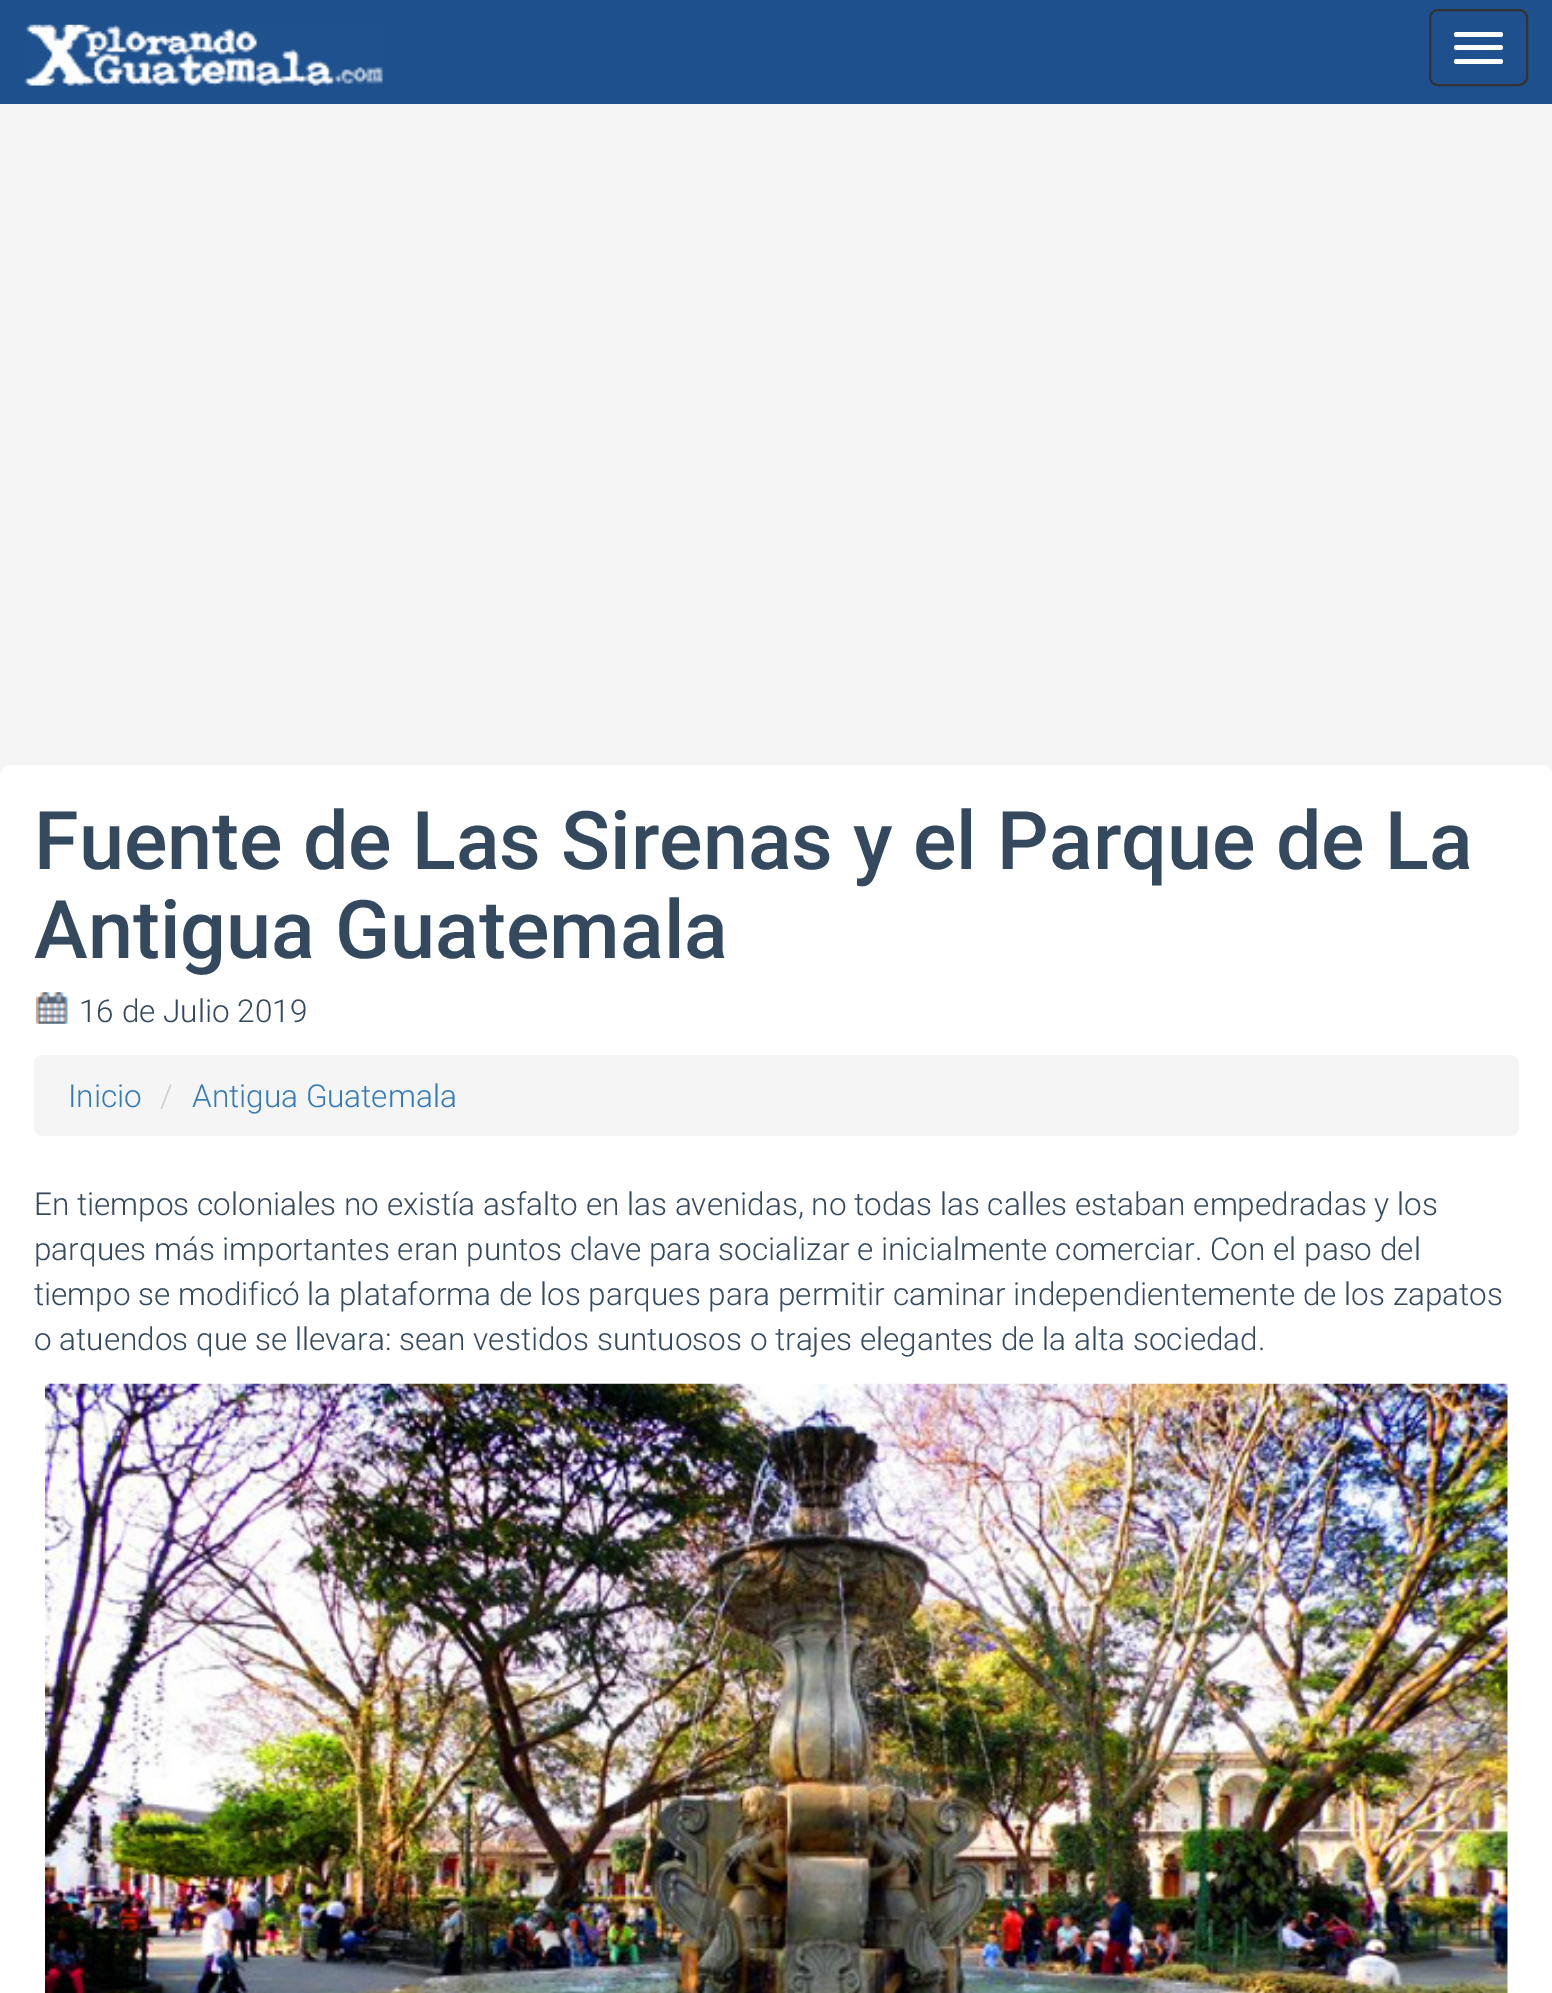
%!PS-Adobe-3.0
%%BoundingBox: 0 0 1552 1993
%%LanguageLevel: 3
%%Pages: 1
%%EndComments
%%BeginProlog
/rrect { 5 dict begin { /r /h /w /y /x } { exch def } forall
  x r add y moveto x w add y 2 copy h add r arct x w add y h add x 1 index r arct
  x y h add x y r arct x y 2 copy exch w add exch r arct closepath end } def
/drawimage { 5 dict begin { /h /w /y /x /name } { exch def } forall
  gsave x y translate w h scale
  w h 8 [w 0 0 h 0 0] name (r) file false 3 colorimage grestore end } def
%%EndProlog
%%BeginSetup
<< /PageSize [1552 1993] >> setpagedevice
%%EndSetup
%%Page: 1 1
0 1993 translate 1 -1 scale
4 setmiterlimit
0.961 setgray
0 0 1552 1993 rectfill
0.114 0.314 0.553 setrgbcolor
0 0 1552 104 rectfill
(images/1.raw) 24 24 359 62 drawimage
0.2 setgray
2 setlinewidth
1430 10 97 75 8 rrect stroke
1 setgray
1454 32 49 5 2.5 rrect fill
1454 45 49 5 2.5 rrect fill
1454 59 49 5 2.5 rrect fill
0 765 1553 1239 11 rrect fill
(images/2.raw) 36 992 32 32 drawimage
0.961 setgray
34 1055 1485 81 9 rrect fill
(images/3.raw) 45 1383 1463 610 drawimage
/Roboto-Medium [81 0 0 -81 0 0] selectfont
0.204 0.286 0.369 setrgbcolor
34 869 moveto (Fuente de Las Sirenas y el Parque de La) show
34 958 moveto (Antigua Guatemala) show
/Roboto-Light [31.5 0 0 -31.5 0 0] selectfont
79 1022 moveto (16 de Julio 2019) show
0.2 0.478 0.718 setrgbcolor
68 1107 moveto (Inicio) show
0.8 setgray
160 1107 moveto (/) show
0.2 0.478 0.718 setrgbcolor
192 1107 moveto (Antigua Guatemala) show
0.204 0.286 0.369 setrgbcolor
34 1215 moveto (En tiempos coloniales no existía asfalto en las avenidas, no todas las calles estaban empedradas y los) show
34 1260 moveto (parques más importantes eran puntos clave para socializar e inicialmente comerciar. Con el paso del) show
34 1305 moveto (tiempo se modificó la plataforma de los parques para permitir caminar independientemente de los zapatos) show
34 1350 moveto (o atuendos que se llevara: sean vestidos suntuosos o trajes elegantes de la alta sociedad.) show
showpage
%%EOF
